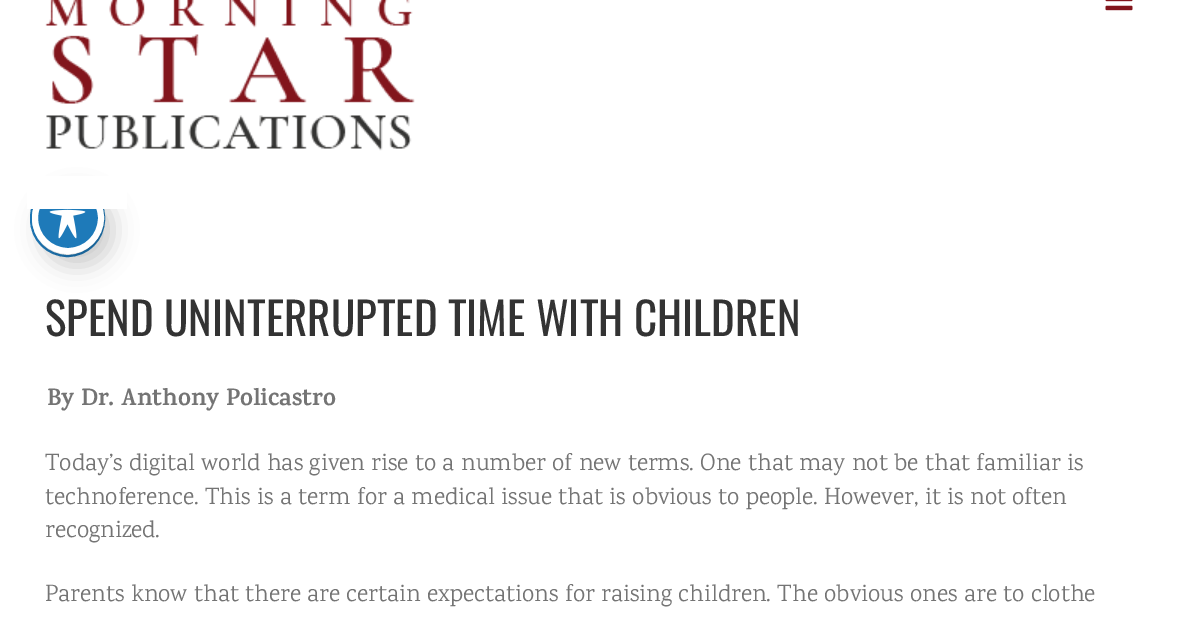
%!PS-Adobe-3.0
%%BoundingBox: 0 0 1181 620
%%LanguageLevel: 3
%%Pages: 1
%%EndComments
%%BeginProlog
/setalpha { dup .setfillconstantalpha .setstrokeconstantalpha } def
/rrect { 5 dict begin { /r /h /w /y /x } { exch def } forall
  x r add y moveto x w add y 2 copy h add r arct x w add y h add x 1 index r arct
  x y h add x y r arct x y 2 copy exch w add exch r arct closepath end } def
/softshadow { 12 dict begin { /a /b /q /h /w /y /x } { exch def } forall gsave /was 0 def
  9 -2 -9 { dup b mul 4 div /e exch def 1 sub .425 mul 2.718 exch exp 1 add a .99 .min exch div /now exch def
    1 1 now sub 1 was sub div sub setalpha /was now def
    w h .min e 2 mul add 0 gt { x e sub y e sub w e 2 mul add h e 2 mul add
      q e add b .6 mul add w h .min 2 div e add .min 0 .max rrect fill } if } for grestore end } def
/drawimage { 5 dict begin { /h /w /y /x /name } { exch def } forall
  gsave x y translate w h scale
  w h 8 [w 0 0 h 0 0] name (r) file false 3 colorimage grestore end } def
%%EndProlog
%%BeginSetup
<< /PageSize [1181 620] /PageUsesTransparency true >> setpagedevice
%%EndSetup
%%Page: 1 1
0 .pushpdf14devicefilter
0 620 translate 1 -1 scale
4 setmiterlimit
1 setgray
0 0 1181 620 rectfill
0.118 0.478 0.725 setrgbcolor
2 setlinewidth
31 181 73 75 36.5 rrect stroke
0 setgray
41 194 72 72 36 12 0.2 softshadow
0.118 0.478 0.725 setrgbcolor
newpath 68 218 33 0 360 arc closepath gsave fill grestore
1 setgray
6 setlinewidth
stroke
(images/1.raw) 49 209 37 30 drawimage
27 176 100 33 rectfill
(images/2.raw) 45 0 370 151 drawimage
(images/3.raw) 1105 0 28 11 drawimage
/Oswald-Regular [45 0 0 -45 0 0] selectfont
0.2 setgray
45 336 moveto (SPEND UNINTERRUPTED TIME WITH CHILDREN) show
/Karma-Bold [24 0 0 -24 0 0] selectfont
0.455 setgray
47 405 moveto (By Dr. Anthony Policastro) show
/Karma-Regular [24 0 0 -24 0 0] selectfont
45 470 moveto (Today’s digital world has given rise to a number of new terms. One that may not be that familiar is) show
45 504 moveto (technoference. This is a term for a medical issue that is obvious to people. However, it is not often) show
45 537 moveto (recognized.) show
45 601 moveto (Parents know that there are certain expectations for raising children. The obvious ones are to clothe) show
.poppdf14devicefilter showpage
%%EOF
